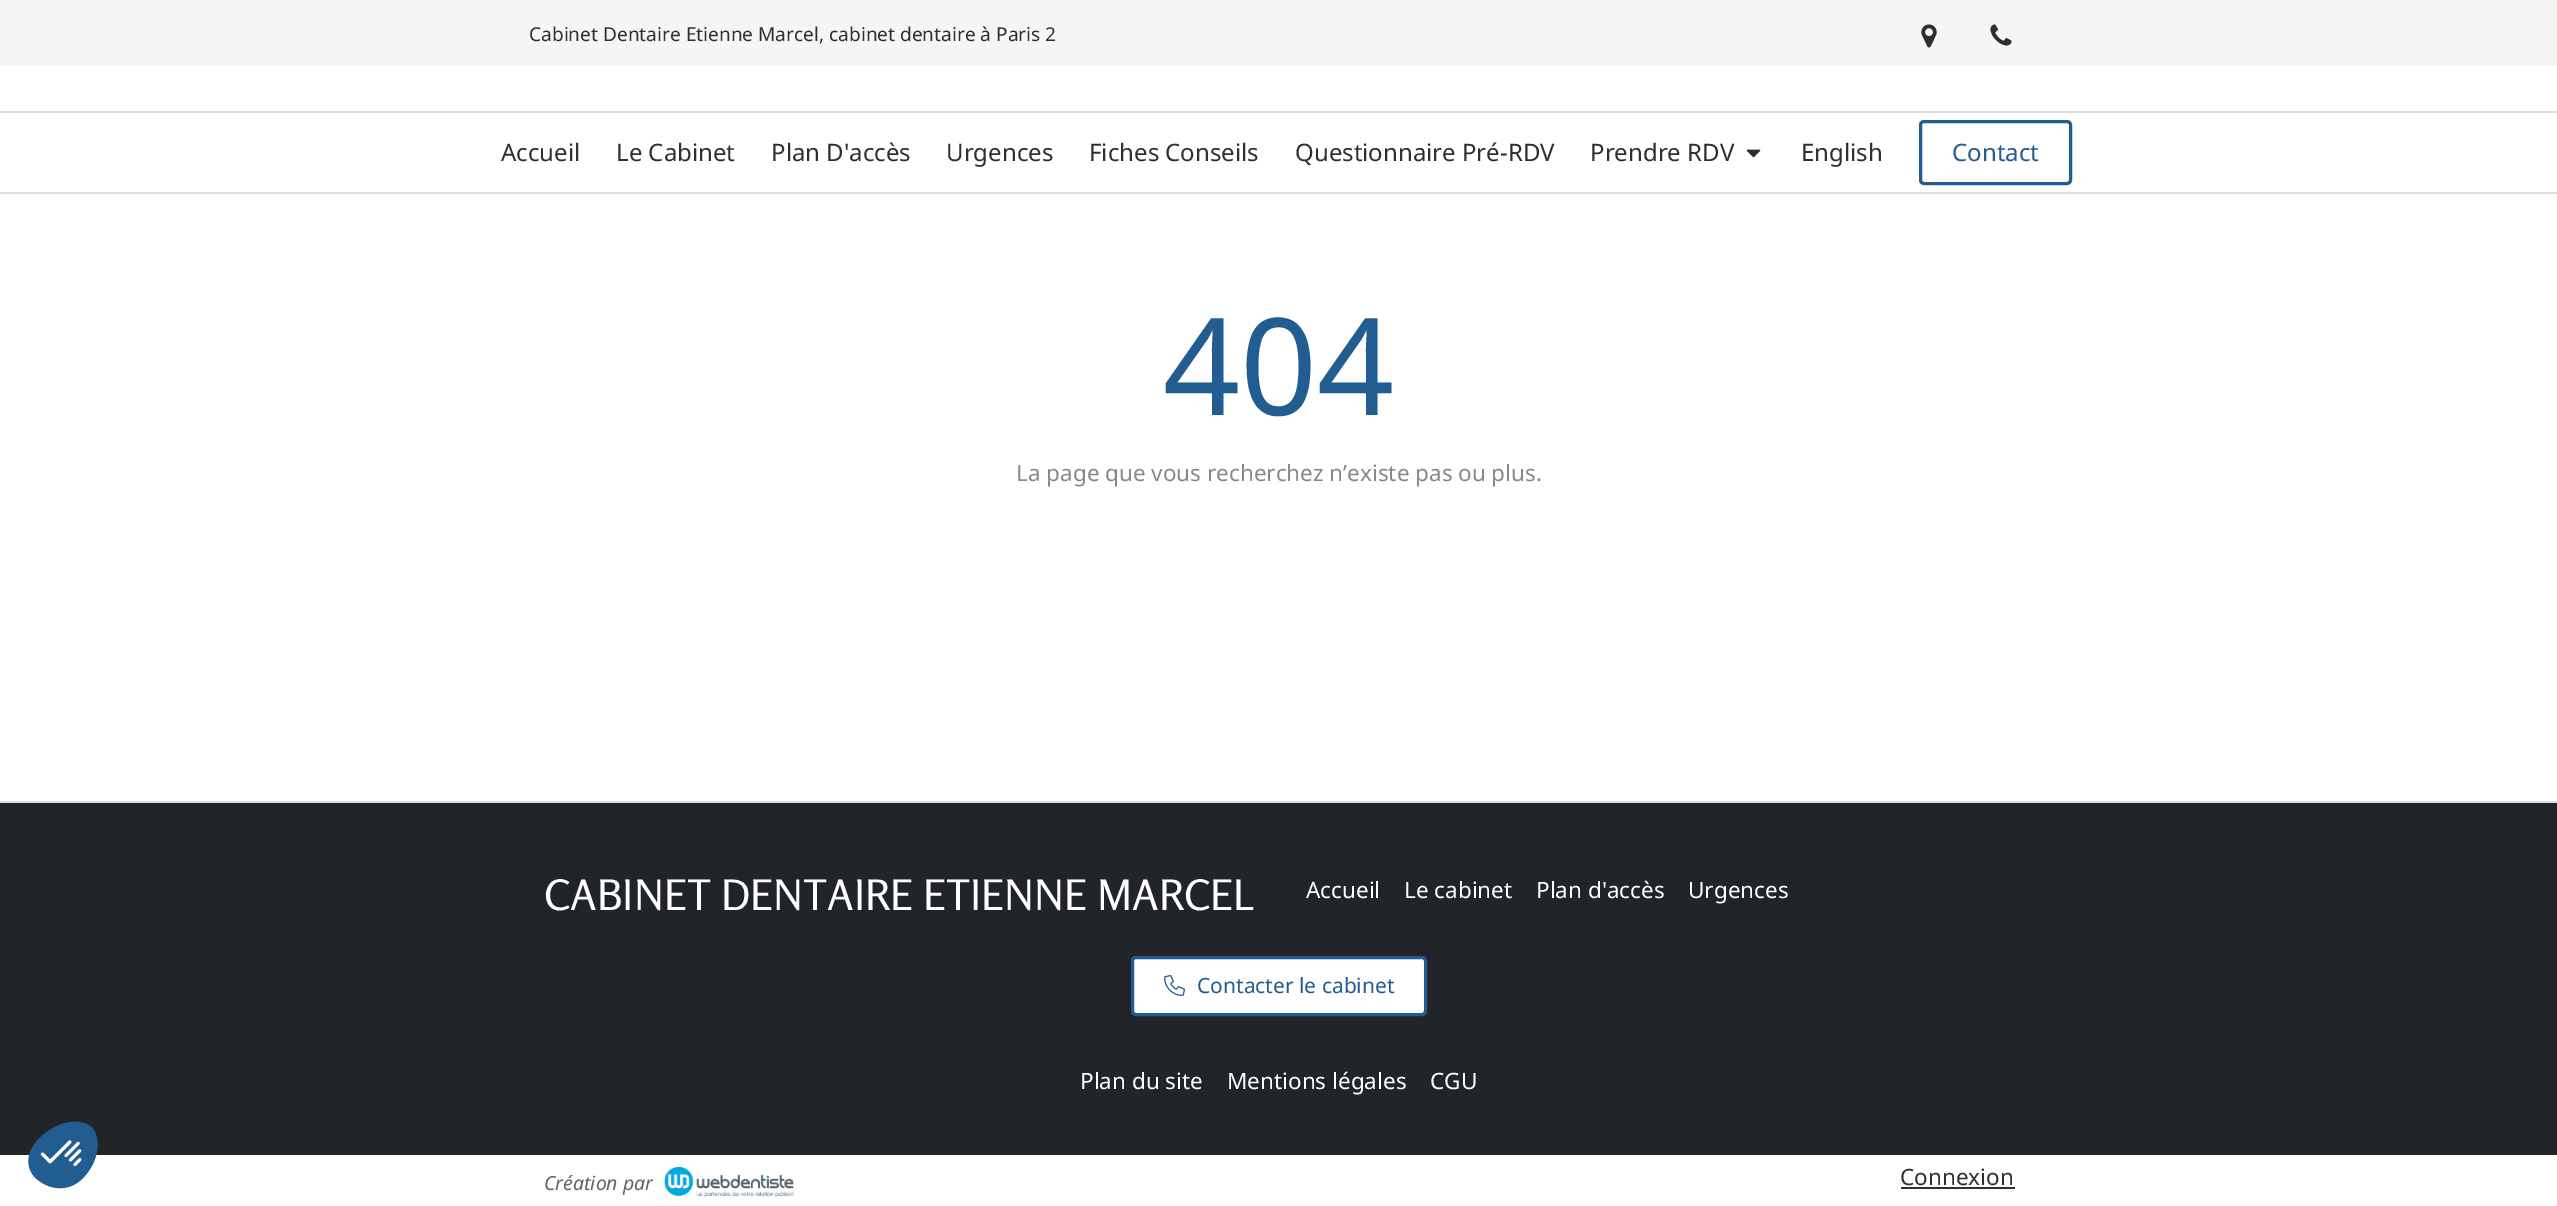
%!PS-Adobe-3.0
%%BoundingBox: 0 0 2557 1206
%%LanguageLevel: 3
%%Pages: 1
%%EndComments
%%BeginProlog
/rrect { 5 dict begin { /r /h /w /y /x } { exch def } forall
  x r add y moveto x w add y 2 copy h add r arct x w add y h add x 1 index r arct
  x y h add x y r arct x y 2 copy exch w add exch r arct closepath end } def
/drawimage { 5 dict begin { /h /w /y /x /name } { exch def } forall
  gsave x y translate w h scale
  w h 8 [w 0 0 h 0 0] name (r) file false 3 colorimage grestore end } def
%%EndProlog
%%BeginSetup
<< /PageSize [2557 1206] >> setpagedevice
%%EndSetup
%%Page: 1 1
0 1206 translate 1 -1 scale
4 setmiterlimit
1 setgray
0 0 2557 1206 rectfill
0.129 0.145 0.165 setrgbcolor
0 803 2557 352 rectfill
(images/1.raw) 28 1121 70 68 drawimage
0.961 setgray
0 0 2557 66 rectfill
(images/2.raw) 1921 24 16 24 drawimage
(images/3.raw) 1990 24 22 22 drawimage
0.867 setgray
0 111 2557 2 rectfill
0 192 2557 2 rectfill
(images/4.raw) 1746 149 15 9 drawimage
0.133 0.365 0.569 setrgbcolor
3 setlinewidth
1920.5 121.5 150 62 3.5 rrect stroke
0.867 setgray
0 801 2557 2 rectfill
1 setgray
1132.5 957.5 293 57 3.5 rrect gsave fill grestore
0.133 0.365 0.569 setrgbcolor
stroke
(images/5.raw) 1164 975 21 21 drawimage
(images/6.raw) 664 1167 130 30 drawimage
0.184 setgray
1901 1187 114 2 rectfill
/NotoSans-Regular [19.1 0 0 -19.1 0 0] selectfont
529 41 moveto (Cabinet Dentaire Etienne Marcel, cabinet dentaire à Paris 2) show
/NotoSans-Regular [24 0 0 -24 0 0] selectfont
501 161 moveto (Accueil) show
616 161 moveto (Le Cabinet) show
771 161 moveto (Plan D'accès) show
946 161 moveto (Urgences) show
1089 161 moveto (Fiches Conseils) show
1295 161 moveto (Questionnaire Pré-RDV) show
1590 161 moveto (Prendre RDV) show
1801 161 moveto (English) show
0.133 0.365 0.569 setrgbcolor
1952 161 moveto (Contact) show
/NotoSans-Regular [135 0 0 -135 0 0] selectfont
1163 415 moveto (404) show
/NotoSans-Regular [22.5 0 0 -22.5 0 0] selectfont
0.533 setgray
1016 481 moveto (La page que vous recherchez n’existe pas ou plus.) show
/Rosario-Regular [42 0 0 -42 0 0] selectfont
1 setgray
544 910 moveto (CABINET DENTAIRE ETIENNE MARCEL) show
/NotoSans-Regular [22.5 0 0 -22.5 0 0] selectfont
1306 898 moveto (Accueil) show
1404 898 moveto (Le cabinet) show
1536 898 moveto (Plan d'accès) show
1688 898 moveto (Urgences) show
/NotoSans-Regular [21 0 0 -21 0 0] selectfont
0.133 0.365 0.569 setrgbcolor
1197 993 moveto (Contacter le cabinet) show
/NotoSans-Regular [22.5 0 0 -22.5 0 0] selectfont
1 setgray
1080 1089 moveto (Plan du site) show
1227 1089 moveto (Mentions légales) show
1430 1089 moveto (CGU) show
/NotoSans-Italic [19.5 0 0 -19.5 0 0] selectfont
0.392 setgray
544 1190 moveto (Création par) show
/NotoSans-Regular [22.5 0 0 -22.5 0 0] selectfont
0.184 setgray
1900 1185 moveto (Connexion) show
showpage
%%EOF
